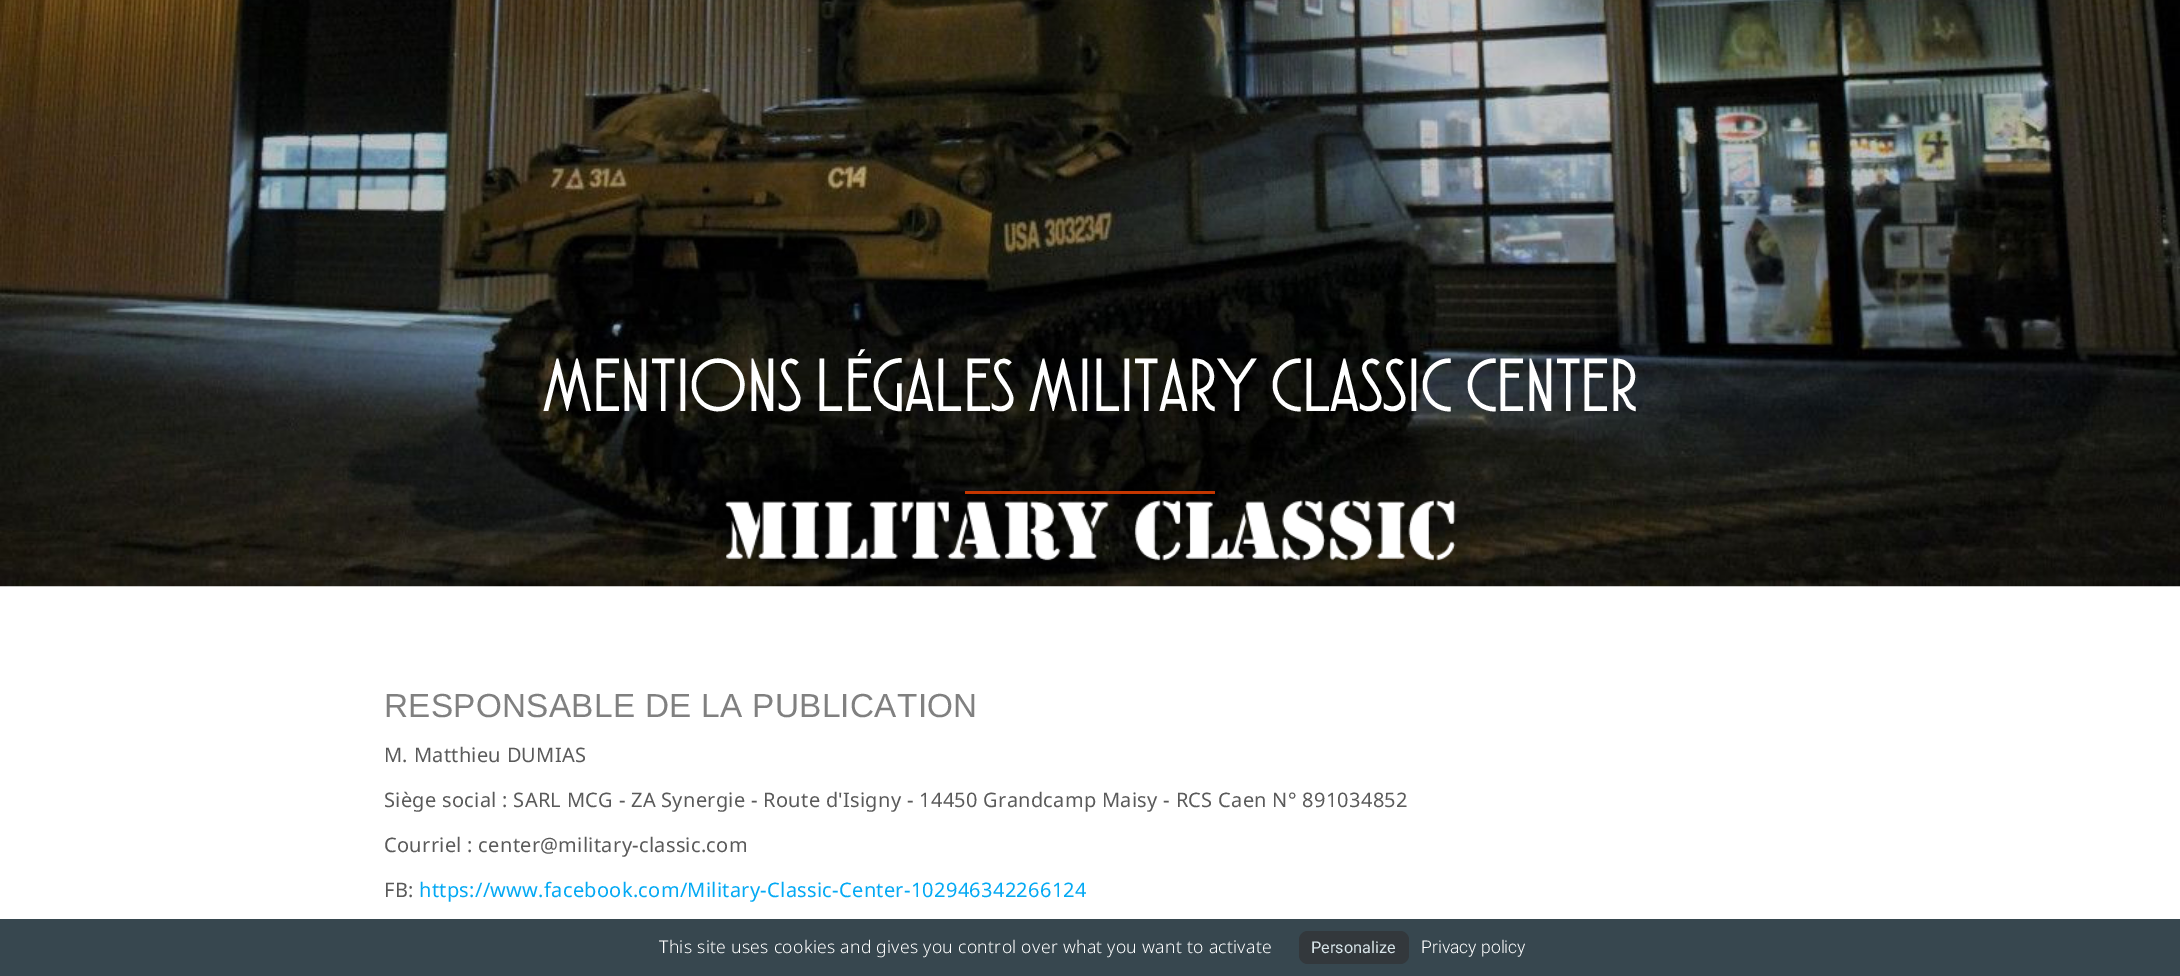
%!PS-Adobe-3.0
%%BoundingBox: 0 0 2180 976
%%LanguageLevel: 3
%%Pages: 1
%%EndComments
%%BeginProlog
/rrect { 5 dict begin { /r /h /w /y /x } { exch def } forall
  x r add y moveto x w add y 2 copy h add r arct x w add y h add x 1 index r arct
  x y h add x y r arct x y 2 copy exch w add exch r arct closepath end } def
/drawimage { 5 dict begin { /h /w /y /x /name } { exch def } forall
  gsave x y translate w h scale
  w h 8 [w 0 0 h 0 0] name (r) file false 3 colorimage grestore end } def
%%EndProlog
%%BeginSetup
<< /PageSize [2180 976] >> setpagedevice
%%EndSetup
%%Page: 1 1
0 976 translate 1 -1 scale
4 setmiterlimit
1 setgray
0 0 2180 976 rectfill
(images/1.raw) 0 0 2180 587 drawimage
0.769 0.212 0 setrgbcolor
965 491 250 3 rectfill
(images/2.raw) 725 500 731 61 drawimage
0.216 0.278 0.31 setrgbcolor
0 919 2180 57 rectfill
0.2 0.22 0.235 setrgbcolor
1299 931 110 33 9 rrect fill
/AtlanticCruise-Regular [75 0 0 -75 0 0] selectfont
1 setgray
543 411 moveto 0.31 0 (MENTIONS LÉGALES MILITARY CLASSIC CENTER) ashow
/LiberationSans-Regular [33.3 0 0 -33.3 0 0] selectfont
0.502 setgray
384 717 moveto 0.31 0 (RESPONSABLE DE LA PUBLICATION) ashow
/NotoSans-Regular [20 0 0 -20 0 0] selectfont
0.353 setgray
384 762 moveto 0.31 0 (M. Matthieu DUMIAS) ashow
384 807 moveto 0.31 0 (Siège social : SARL MCG - ZA Synergie - Route d'Isigny - 14450 Grandcamp Maisy - RCS Caen N° 891034852) ashow
384 852 moveto 0.31 0 (Courriel : center@military-classic.com) ashow
384 897 moveto 0.31 0 (FB:) ashow
0.012 0.663 0.957 setrgbcolor
419 897 moveto 0.31 0 (https://www.facebook.com/Military-Classic-Center-102946342266124) ashow
/NotoSans-Light [17.5 0 0 -17.5 0 0] selectfont
1 setgray
659 953 moveto 0.31 0 (This site uses cookies and gives you control over what you want to activate) ashow
/Roboto-Regular [16.25 0 0 -16.25 0 0] selectfont
0.847 0.898 0.918 setrgbcolor
1311 953 moveto (Personalize) show
/Roboto-Light [17.5 0 0 -17.5 0 0] selectfont
1 setgray
1421 953 moveto (Privacy policy) show
showpage
%%EOF
